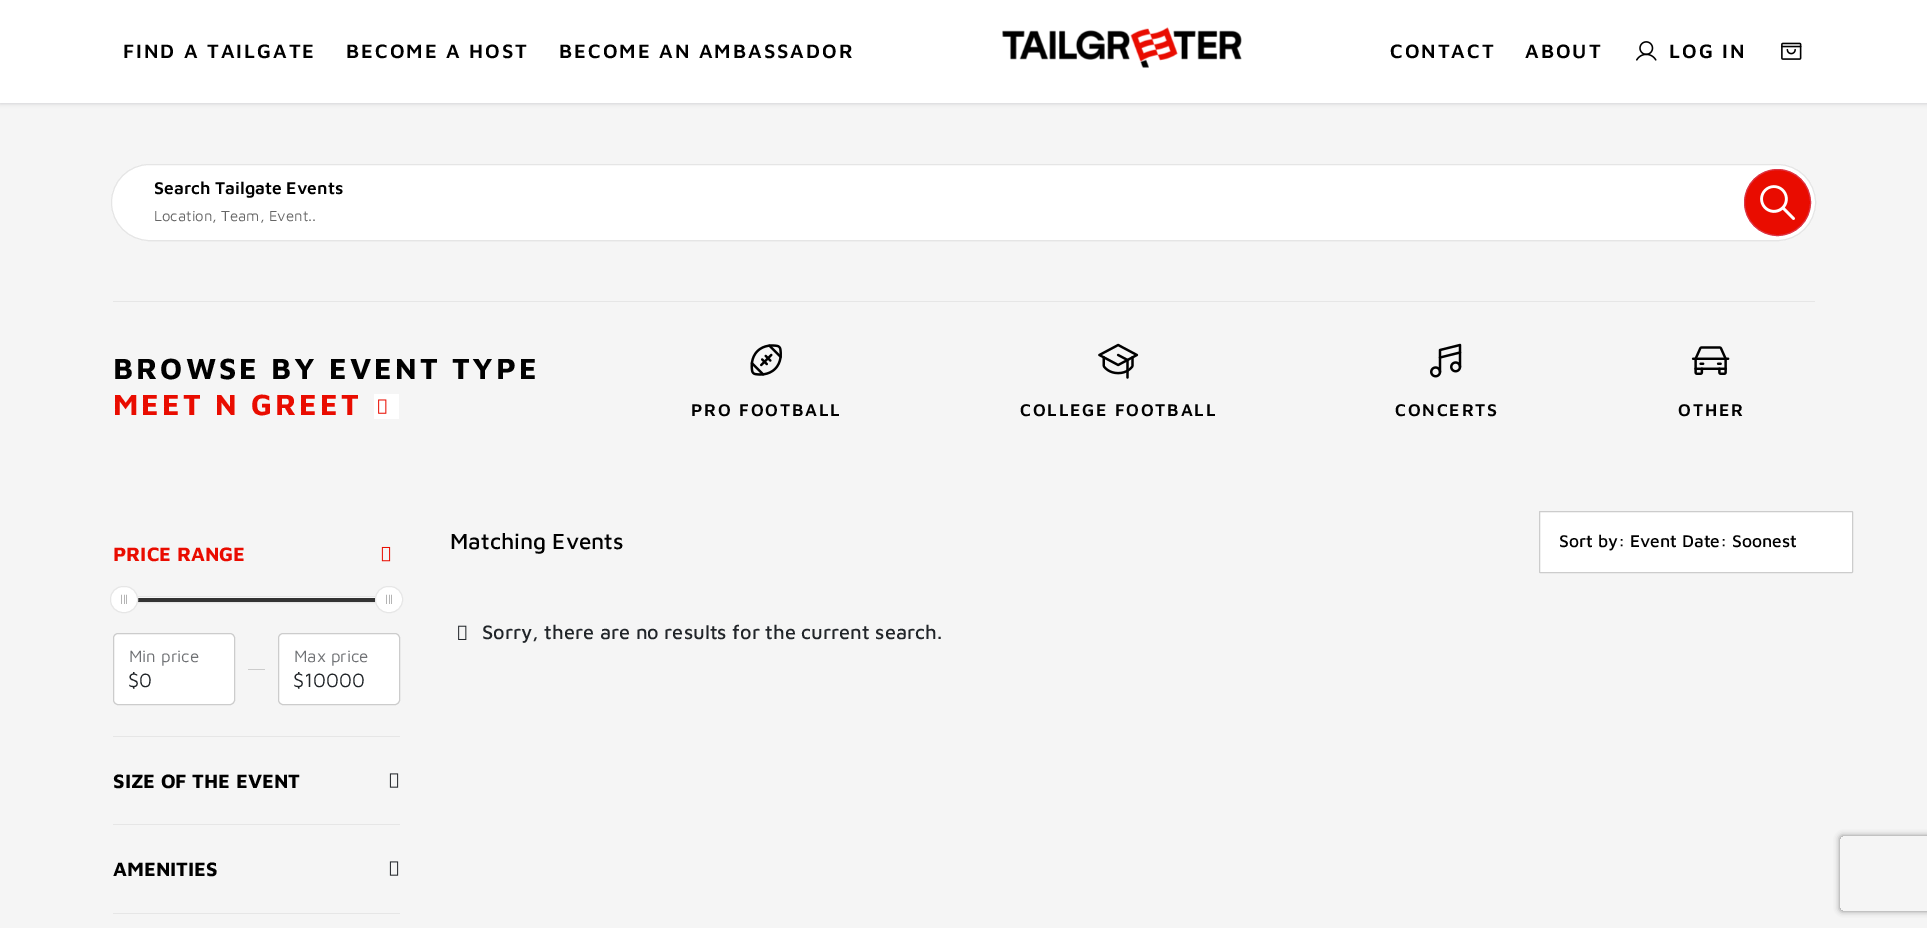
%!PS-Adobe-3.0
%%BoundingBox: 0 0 1927 928
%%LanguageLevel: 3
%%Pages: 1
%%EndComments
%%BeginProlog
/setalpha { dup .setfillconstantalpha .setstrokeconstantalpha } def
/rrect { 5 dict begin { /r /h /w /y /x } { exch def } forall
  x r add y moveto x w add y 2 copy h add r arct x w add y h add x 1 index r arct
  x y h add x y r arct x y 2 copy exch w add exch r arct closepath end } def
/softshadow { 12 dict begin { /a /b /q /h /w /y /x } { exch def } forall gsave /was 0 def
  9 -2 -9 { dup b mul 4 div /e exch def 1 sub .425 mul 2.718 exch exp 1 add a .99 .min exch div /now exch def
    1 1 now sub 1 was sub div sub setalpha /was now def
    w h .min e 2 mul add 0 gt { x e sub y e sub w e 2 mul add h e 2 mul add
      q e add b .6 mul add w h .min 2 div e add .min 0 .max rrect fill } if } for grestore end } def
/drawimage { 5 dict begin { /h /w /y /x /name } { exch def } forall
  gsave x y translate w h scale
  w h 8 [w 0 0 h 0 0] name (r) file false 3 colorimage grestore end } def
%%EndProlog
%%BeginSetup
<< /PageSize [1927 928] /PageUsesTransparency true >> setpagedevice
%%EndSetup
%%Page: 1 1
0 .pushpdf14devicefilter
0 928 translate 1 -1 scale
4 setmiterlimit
0.961 setgray
0 0 1927 928 rectfill
0.263 0.278 0.333 setrgbcolor
0 0 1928 103 0 2.5 0.27 softshadow
1 setgray
0 0 1927 103 rectfill
(images/1.raw) 1002 27 240 41 drawimage
(images/2.raw) 1636 41 21 20 drawimage
(images/3.raw) 1781 42 21 18 drawimage
111 164 1705 77 38.5 rrect fill
0.1 setalpha
0 setgray
111.5 164.5 1704 76 38 rrect stroke
1 setalpha
0.914 0.047 0 setrgbcolor
newpath 1777.5 202.5 33 0 360 arc closepath gsave fill grestore
0.863 0.208 0.271 setrgbcolor
stroke
(images/4.raw) 1760 185 35 35 drawimage
0.902 setgray
113 301 1702 1 rectfill
1 setgray
374 394 25 25 rectfill
(images/5.raw) 378 399 9 15 drawimage
(images/6.raw) 750 344 32 32 drawimage
(images/7.raw) 1098 343 41 36 drawimage
(images/8.raw) 1430 343 32 35 drawimage
(images/9.raw) 1691 346 39 29 drawimage
0.902 setgray
113 736 287 1 rectfill
(images/10.raw) 381 546 10 16 drawimage
1 setgray
137 597 239 1 rectfill
0.902 setgray
123.5 596.5 266 6 rectstroke
0.2 setgray
137 598 239 4 rectfill
1 setgray
110.5 586.5 27 26 12.5 rrect gsave fill grestore
0.902 setgray
stroke
1 setgray
375.5 586.5 27 26 12.5 rrect gsave fill grestore
0.902 setgray
stroke
1 setgray
113.5 633.5 121 71 4.5 rrect gsave fill grestore
0.8 setgray
stroke
248 669 17 1 rectfill
1 setgray
278.5 633.5 121 71 4.5 rrect gsave fill grestore
0.8 setgray
stroke
0.902 setgray
113 824 287 1 rectfill
(images/11.raw) 389 773 10 15 drawimage
113 913 287 1 rectfill
(images/12.raw) 389 861 10 15 drawimage
1 setgray
1539.5 511.5 313 61 0.5 rrect gsave fill grestore
0.8 setgray
stroke
(images/13.raw) 458 625 9 15 drawimage
gsave
newpath 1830 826 moveto 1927 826 lineto 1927 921 lineto 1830 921 lineto closepath 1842.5 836 moveto 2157.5 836 lineto 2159 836 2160 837 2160 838.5 curveto 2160 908.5 lineto 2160 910 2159 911 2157.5 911 curveto 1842.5 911 lineto 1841 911 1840 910 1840 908.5 curveto 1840 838.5 lineto 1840 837 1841 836 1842.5 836 curveto closepath eoclip newpath
0.502 setgray
1840 836 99 75 2.5 3 1 softshadow
grestore
/MavenPro-SemiBold [20 0 0 -20 0 0] selectfont
0 setgray
123 58 moveto 2 0 (FIND A TAILGATE) ashow
346 58 moveto 2 0 (BECOME A HOST) ashow
559 58 moveto 2 0 (BECOME AN AMBASSADOR) ashow
1390 58 moveto 2 0 (CONTACT) ashow
1525 58 moveto 2 0 (ABOUT) ashow
1669 58 moveto 2 0 (LOG IN) ashow
/MavenPro-SemiBold [17.5 0 0 -17.5 0 0] selectfont
154 194 moveto (Search Tailgate Events) show
/MavenPro-Regular [15 0 0 -15 0 0] selectfont
0.4 setgray
154 221 moveto (Location, Team, Event..) show
/MavenPro-Bold [30 0 0 -30 0 0] selectfont
0 setgray
113 379 moveto 3 0 (BROWSE BY EVENT TYPE) ashow
0.914 0.047 0 setrgbcolor
113 415 moveto 3 0 (MEET N GREET) ashow
/MavenPro-SemiBold [17.5 0 0 -17.5 0 0] selectfont
0 setgray
691 416 moveto 1.75 0 (PRO FOOTBALL) ashow
1020 416 moveto 1.75 0 (COLLEGE FOOTBALL) ashow
1395 416 moveto 1.75 0 (CONCERTS) ashow
1678 416 moveto 1.75 0 (OTHER) ashow
/MavenPro-Bold [20 0 0 -20 0 0] selectfont
0.914 0.047 0 setrgbcolor
113 561 moveto (PRICE RANGE) show
/LiberationSans-Regular [10 0 0 -10 0 0] selectfont
0.6 setgray
120 602 moveto (|||) show
385 602 moveto (|||) show
/MavenPro-Regular [17 0 0 -17 0 0] selectfont
0.435 0.443 0.455 setrgbcolor
129 662 moveto (Min price) show
/MavenPro-Regular [20 0 0 -20 0 0] selectfont
0.129 0.145 0.161 setrgbcolor
128 687 moveto ($) show
139 687 moveto (0) show
/MavenPro-Regular [17 0 0 -17 0 0] selectfont
0.435 0.443 0.455 setrgbcolor
294 662 moveto (Max price) show
/MavenPro-Regular [20 0 0 -20 0 0] selectfont
0.129 0.145 0.161 setrgbcolor
293 687 moveto ($) show
304 687 moveto (10000) show
/MavenPro-Bold [20 0 0 -20 0 0] selectfont
0 setgray
113 788 moveto (SIZE OF THE EVENT) show
113 876 moveto (AMENITIES) show
/MavenPro-Medium [22.5 0 0 -22.5 0 0] selectfont
450 549 moveto (Matching Events) show
/MavenPro-Medium [17.5 0 0 -17.5 0 0] selectfont
1559 547 moveto (Sort by: Event Date: Soonest) show
/MavenPro-Medium [20 0 0 -20 0 0] selectfont
0.129 0.145 0.161 setrgbcolor
482 639 moveto (Sorry, there are no results for the current search.) show
.poppdf14devicefilter showpage
%%EOF
